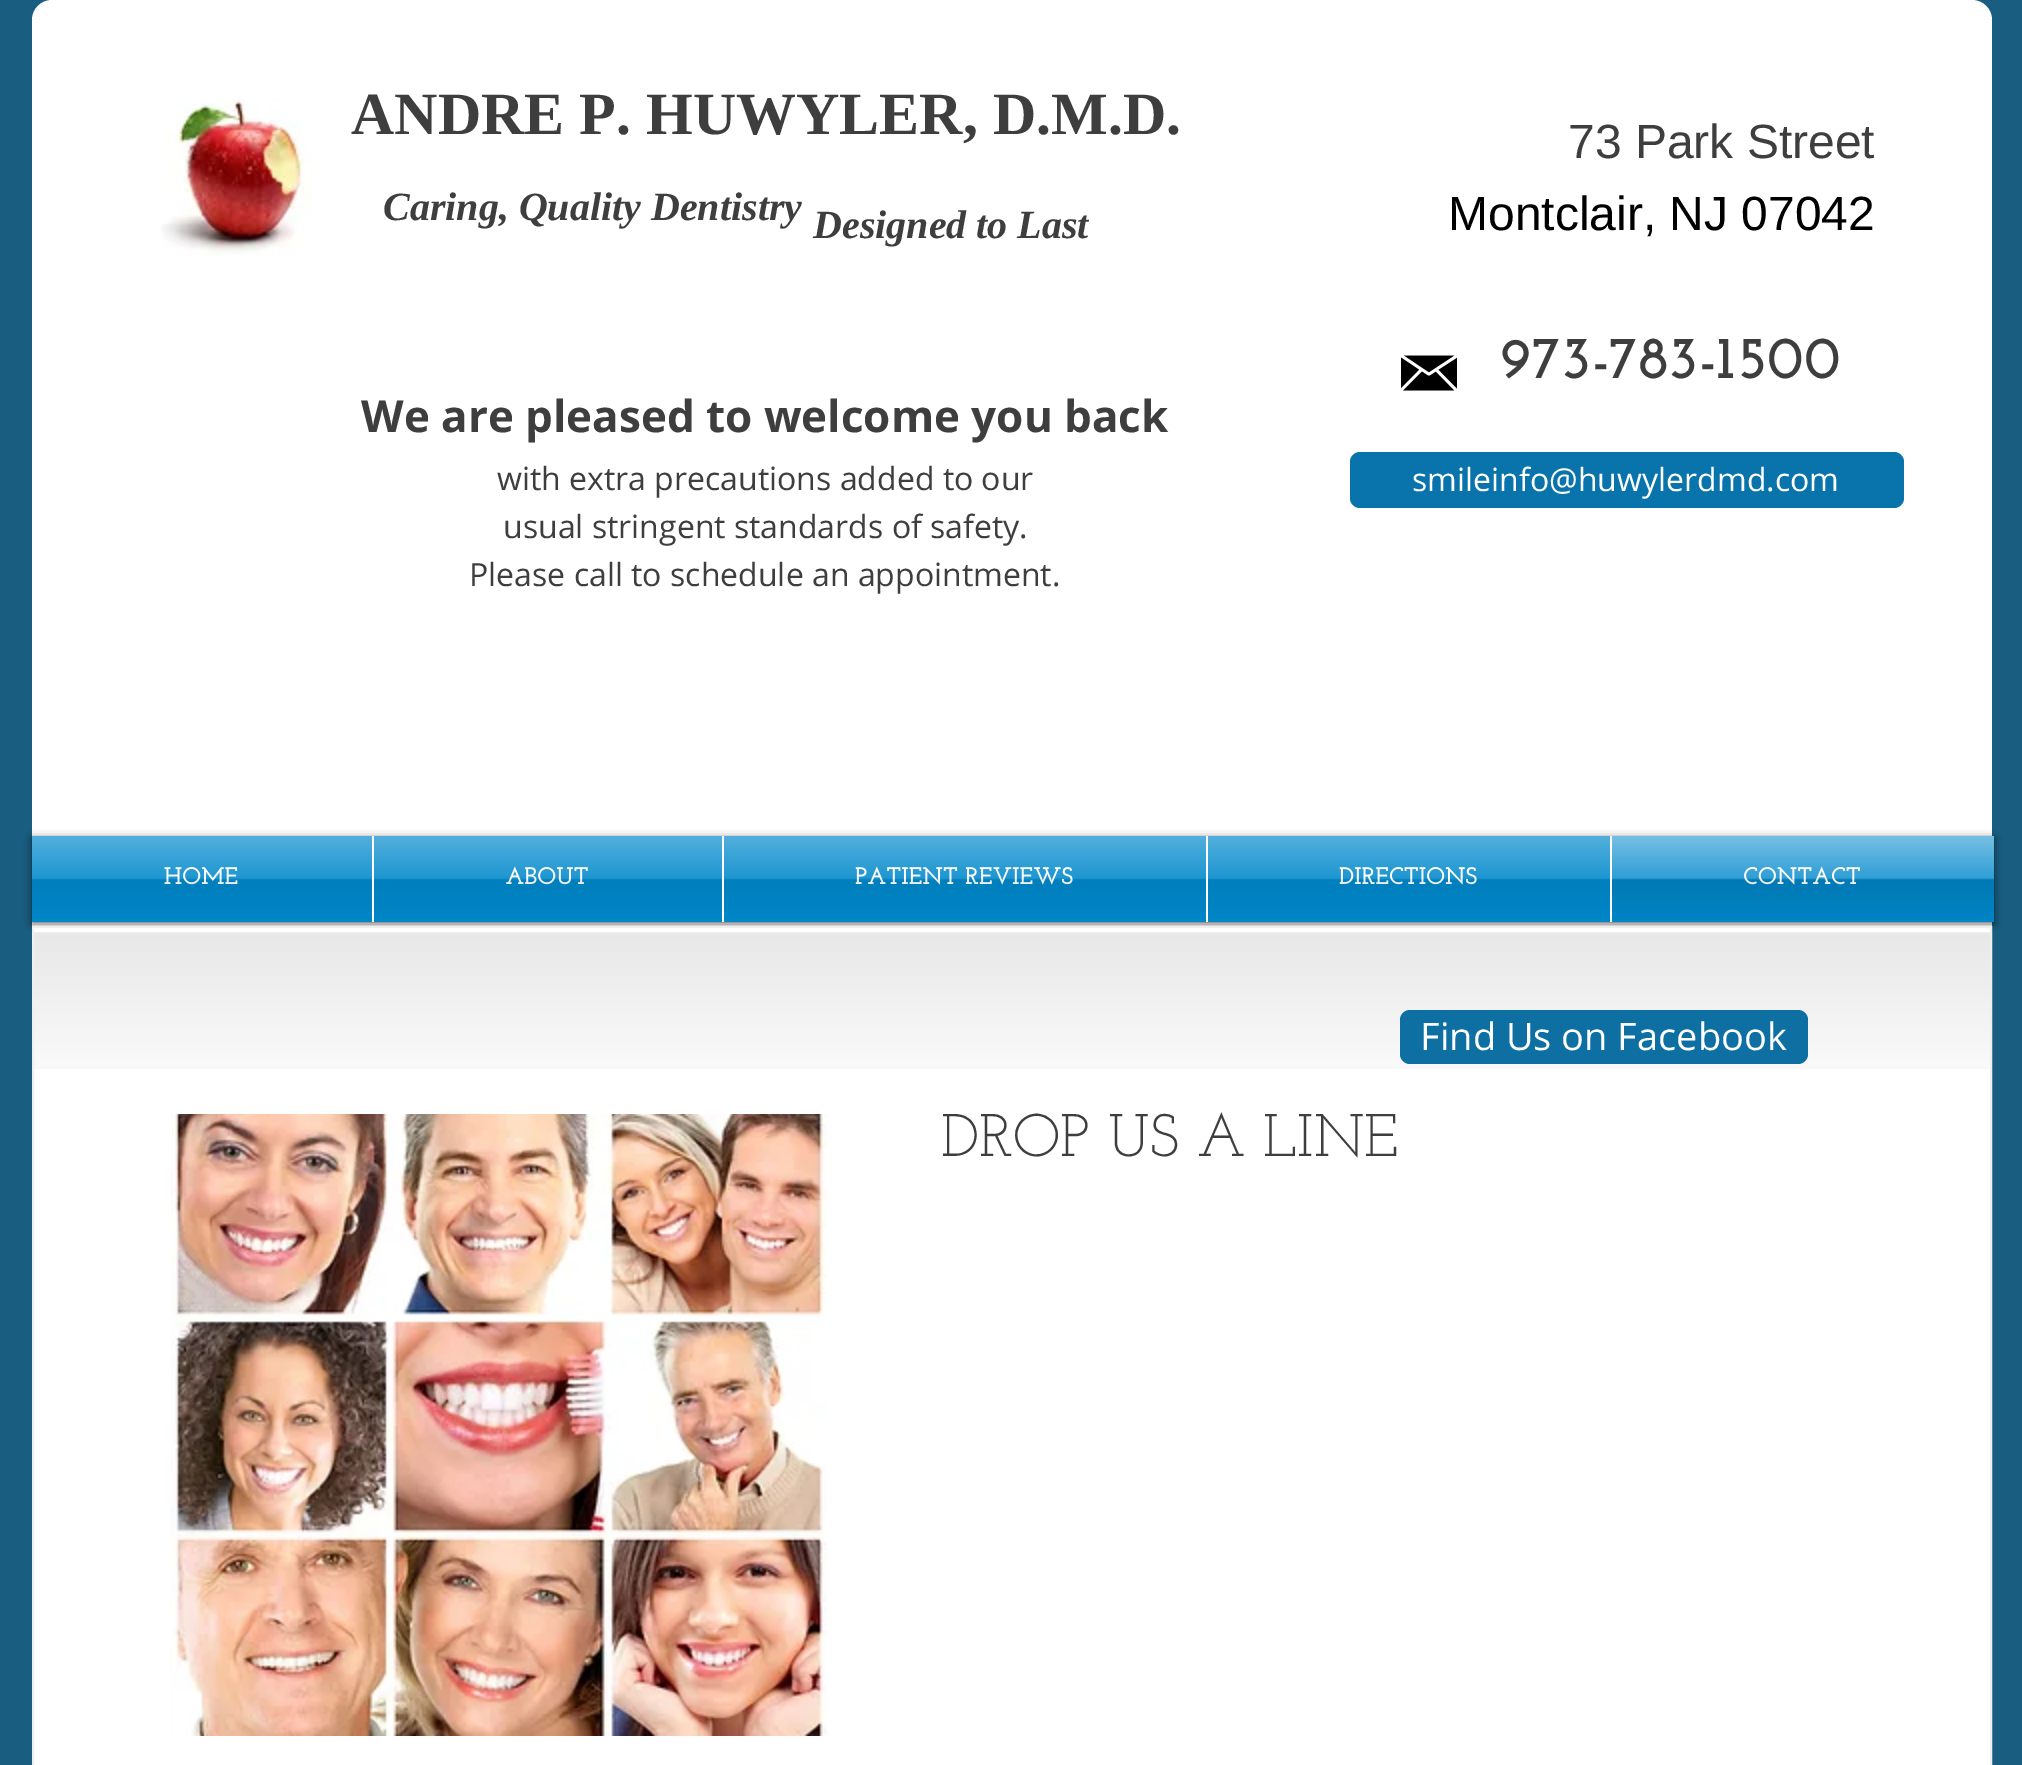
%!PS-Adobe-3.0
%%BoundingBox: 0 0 2022 1765
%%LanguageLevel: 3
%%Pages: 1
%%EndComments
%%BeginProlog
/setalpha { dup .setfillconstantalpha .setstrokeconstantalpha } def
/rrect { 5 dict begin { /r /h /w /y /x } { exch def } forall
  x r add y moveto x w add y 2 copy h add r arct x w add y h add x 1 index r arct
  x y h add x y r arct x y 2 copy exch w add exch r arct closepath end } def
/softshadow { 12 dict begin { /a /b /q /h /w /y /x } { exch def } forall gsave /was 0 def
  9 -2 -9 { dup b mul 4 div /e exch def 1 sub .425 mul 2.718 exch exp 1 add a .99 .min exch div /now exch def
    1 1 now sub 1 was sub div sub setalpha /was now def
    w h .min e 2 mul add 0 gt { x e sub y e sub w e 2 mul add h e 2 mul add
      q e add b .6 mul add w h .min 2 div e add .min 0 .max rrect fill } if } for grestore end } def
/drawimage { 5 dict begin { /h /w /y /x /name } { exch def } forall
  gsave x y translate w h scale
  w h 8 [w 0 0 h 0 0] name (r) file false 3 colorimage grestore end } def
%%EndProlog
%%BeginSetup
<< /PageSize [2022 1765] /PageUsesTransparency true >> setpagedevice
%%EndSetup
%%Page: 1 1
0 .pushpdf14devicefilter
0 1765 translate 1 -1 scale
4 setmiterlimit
0.098 0.365 0.502 setrgbcolor
0 0 2022 1765 rectfill
1 setgray
newpath 52 0 moveto 1972 0 lineto 1983 0 1992 9 1992 20 curveto 1992 926 lineto 32 926 lineto 32 20 lineto 32 9 41 0 52 0 curveto closepath fill
(images/1.raw) 161 97 151 159 drawimage
(images/2.raw) 1401 355 56 36 drawimage
0.035 0.455 0.675 setrgbcolor
1350 452 554 56 10 rrect fill
0 setgray
32 838 1962 86 0 4 0.6 softshadow
0 0.533 0.796 setrgbcolor
1612 836 382 86 rectfill
(images/3.raw) 1612 836 382 84 drawimage
32 836 340 86 rectfill
374 836 348 86 rectfill
1 setgray
372 836 2 86 rectfill
0 0.533 0.796 setrgbcolor
724 836 482 86 rectfill
1 setgray
722 836 2 86 rectfill
0 0.533 0.796 setrgbcolor
1208 836 402 86 rectfill
1 setgray
1206 836 2 86 rectfill
0.39 setalpha
0 0.533 0.796 setrgbcolor
1612 836 382 76 rectfill
1 setalpha
1 setgray
1610 836 2 86 rectfill
34 928 1956 837 rectfill
(images/9.raw) 34 932 1956 137 drawimage
0.937 setgray
2 setlinewidth
33 927 1958 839 rectstroke
0.051 0.435 0.635 setrgbcolor
1400 1010 408 54 10 rrect fill
(images/10.raw) 170 1114 658 622 drawimage
/LiberationSerif-Bold [60 0 0 -60 0 0] selectfont
0.243 setgray
351 134 moveto (ANDRE P. HUWYLER, D.M.D.) show
/LiberationSans-Regular [48 0 0 -48 0 0] selectfont
1568 158 moveto (73 Park Street) show
0 setgray
1448 230 moveto (Montclair, NJ 07042) show
/LiberationSerif-BoldItalic [40 0 0 -40 0 0] selectfont
0.243 setgray
383 220 moveto (Caring, Quality Dentistry) show
813 238 moveto (Designed to Last) show
/JosefinSlab-Bold [60 0 0 -60 0 0] selectfont
1501 378 moveto (973-783-1500) show
/OpenSans-Bold [44 0 0 -44 0 0] selectfont
361 432 moveto (We are pleased to welcome you back) show
/OpenSans-Regular [32 0 0 -32 0 0] selectfont
497 490 moveto (with extra precautions added to our) show
503 538 moveto (usual stringent standards of safety.) show
469 586 moveto (Please call to schedule an appointment.) show
1 setgray
1412 491 moveto (smileinfo@huwylerdmd.com) show
/JosefinSlab-Bold [24 0 0 -24 0 0] selectfont
164 884 moveto (HOME) show
(images/4.raw) 32 836 340 84 drawimage
505 884 moveto (ABOUT) show
(images/5.raw) 374 836 348 84 drawimage
855 884 moveto (PATIENT REVIEWS) show
(images/6.raw) 724 836 482 84 drawimage
1339 884 moveto (DIRECTIONS) show
(images/7.raw) 1208 836 402 84 drawimage
1743 884 moveto (CONTACT) show
(images/8.raw) 1612 836 382 84 drawimage
/OpenSans-Regular [38 0 0 -38 0 0] selectfont
1420 1050 moveto (Find Us on Facebook) show
/JosefinSlab-Regular [60 0 0 -60 0 0] selectfont
0.243 setgray
941 1156 moveto (DROP US A LINE) show
.poppdf14devicefilter showpage
%%EOF
